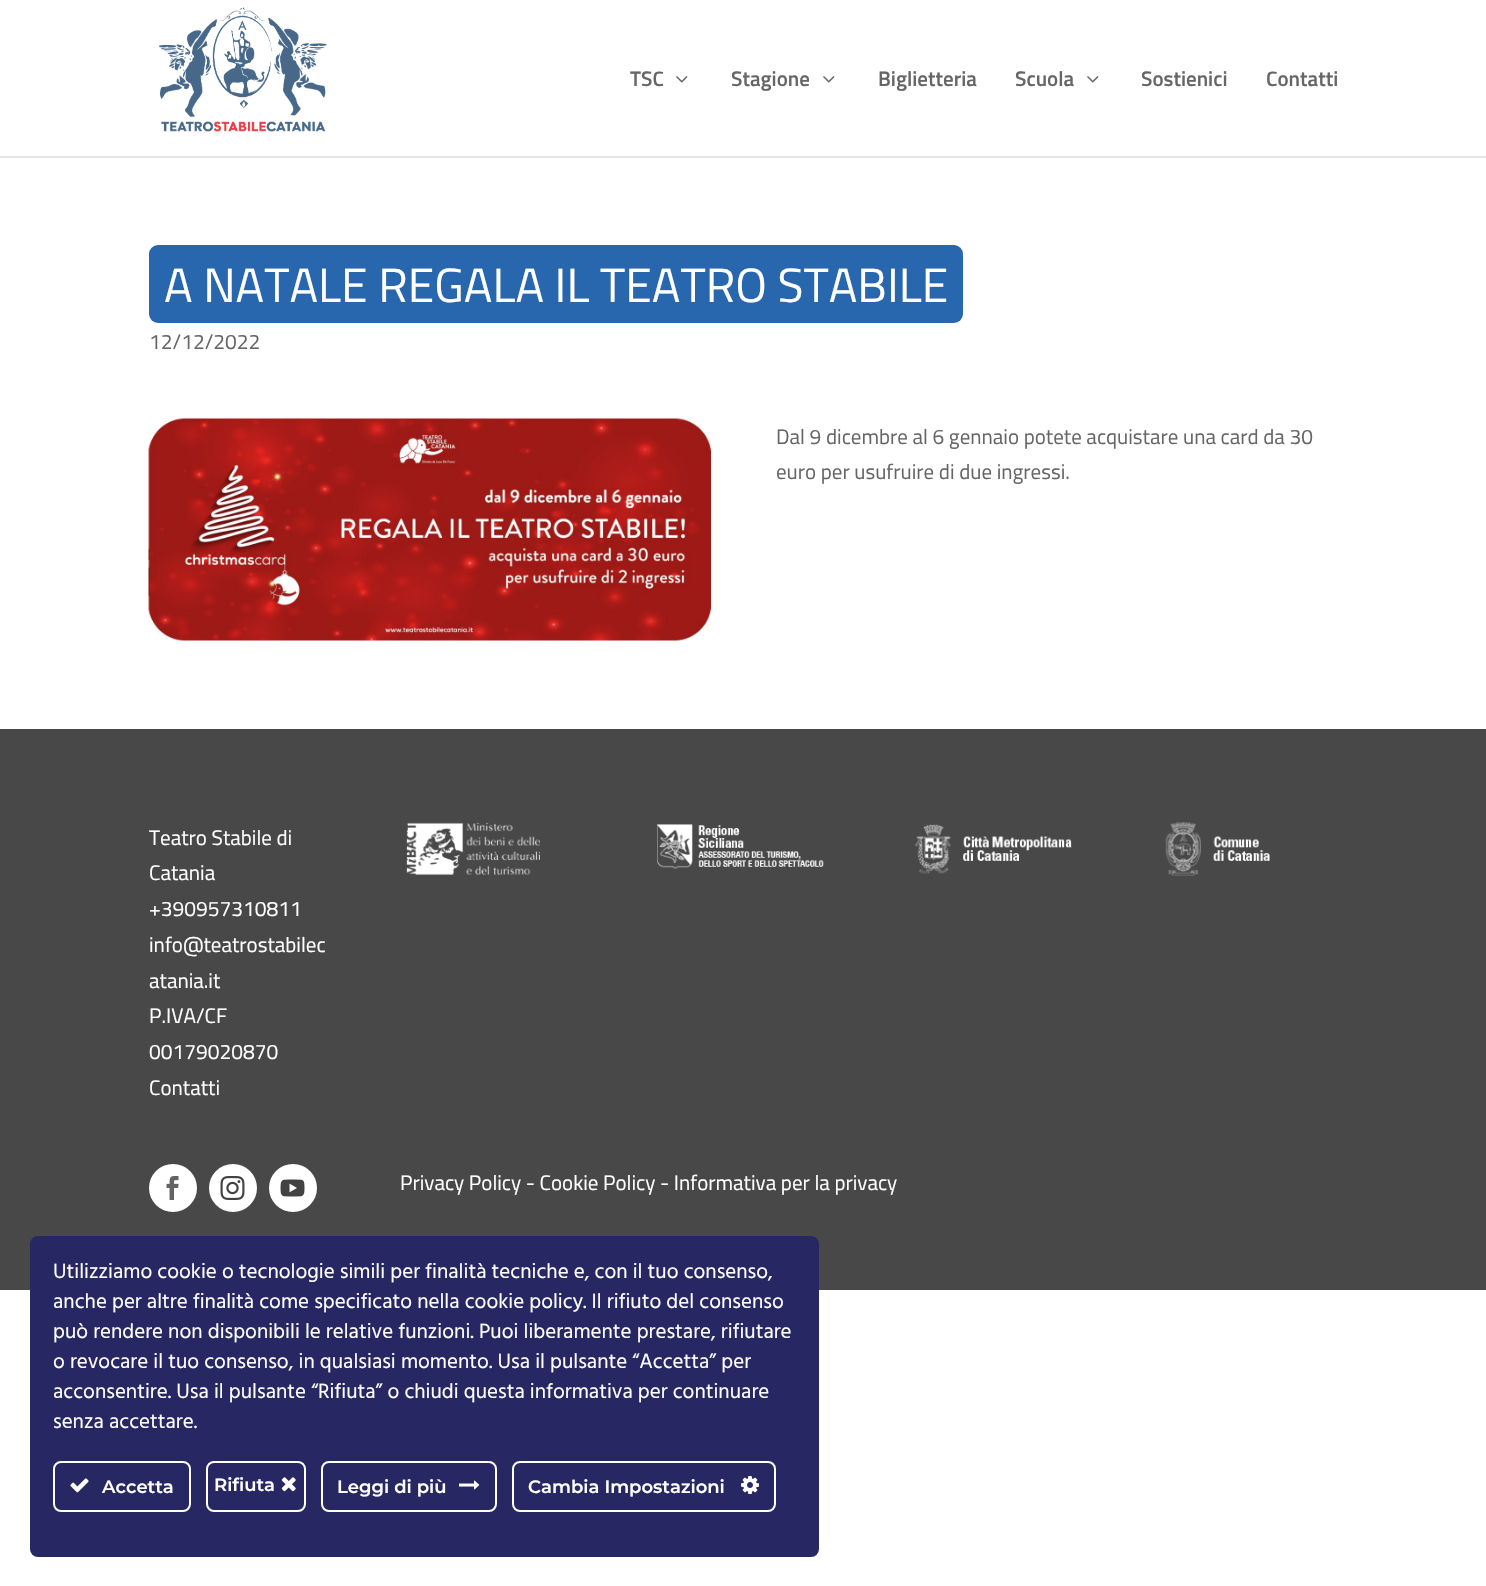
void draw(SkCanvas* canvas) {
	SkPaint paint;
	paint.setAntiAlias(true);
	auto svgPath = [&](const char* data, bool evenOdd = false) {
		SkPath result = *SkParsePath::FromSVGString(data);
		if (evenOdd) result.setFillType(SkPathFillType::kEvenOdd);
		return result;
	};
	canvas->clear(0xffffffff);
	paint.setColor(0xffe6e6e6);
	canvas->drawPath(svgPath("M0 156V158H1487V2H1486V156Z"), paint);
	canvas->drawImageRect(SkImages::DeferredFromEncodedData(SkData::MakeFromFileName("img1.png")), SkRect::MakeXYWH(159, 7, 168, 125), SkSamplingOptions());
	SkFont f1(fontMgr->matchFamilyStyle("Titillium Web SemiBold", SkFontStyle(600, SkFontStyle::kNormal_Width, SkFontStyle::kUpright_Slant)), 21);
	f1.setSubpixel(true);
	paint.setColor(0xff666666);
	canvas->drawString("TSC", 630, 86, f1, paint);
	canvas->drawImageRect(SkImages::DeferredFromEncodedData(SkData::MakeFromFileName("img2.png")), SkRect::MakeXYWH(676, 76, 12, 7), SkSamplingOptions());
	canvas->drawString("Stagione", 731, 86, f1, paint);
	canvas->drawImageRect(SkImages::DeferredFromEncodedData(SkData::MakeFromFileName("img2.png")), SkRect::MakeXYWH(823, 76, 12, 7), SkSamplingOptions());
	canvas->drawString("Biglietteria", 878, 86, f1, paint);
	canvas->drawString("Scuola", 1015, 86, f1, paint);
	canvas->drawImageRect(SkImages::DeferredFromEncodedData(SkData::MakeFromFileName("img2.png")), SkRect::MakeXYWH(1087, 76, 12, 7), SkSamplingOptions());
	canvas->drawString("Sostienici", 1141, 86, f1, paint);
	canvas->drawString("Contatti", 1266, 86, f1, paint);
	paint.setColor(0xff2866ad);
	canvas->drawRoundRect(SkRect::MakeXYWH(149, 245, 814, 78), 9, 9, paint);
	SkFont f2(fontMgr->matchFamilyStyle("Titillium Web", SkFontStyle::Normal()), 48);
	f2.setSubpixel(true);
	paint.setColor(0xffffffff);
	canvas->drawString("A NATALE REGALA IL TEATRO STABILE", 164, 302, f2, paint);
	SkFont f3(fontMgr->matchFamilyStyle("Titillium Web", SkFontStyle::Normal()), 21);
	f3.setSubpixel(true);
	paint.setColor(0xff666666);
	canvas->drawString("12/12/2022", 149, 349, f3, paint);
	canvas->drawImageRect(SkImages::DeferredFromEncodedData(SkData::MakeFromFileName("img3.png")), SkRect::MakeXYWH(148, 418, 563, 223), SkSamplingOptions());
	canvas->drawString("Dal 9 dicembre al 6 gennaio potete acquistare una card da 30", 776, 444, f3, paint);
	canvas->drawString("euro per usufruire di due ingressi.", 776, 479, f3, paint);
	paint.setColor(0xff484848);
	canvas->drawRect(SkRect::MakeXYWH(0, 729, 1486, 561), paint);
	paint.setColor(0xffffffff);
	canvas->drawString("Teatro Stabile di", 149, 845, f3, paint);
	canvas->drawString("Catania", 149, 880, f3, paint);
	canvas->drawString("+390957310811", 149, 916, f3, paint);
	canvas->drawString("info@teatrostabilec", 149, 952, f3, paint);
	canvas->drawString("atania.it", 149, 988, f3, paint);
	canvas->drawString("P.IVA/CF", 149, 1023, f3, paint);
	canvas->drawString("00179020870", 149, 1059, f3, paint);
	canvas->drawString("Contatti", 149, 1095, f3, paint);
	canvas->drawImageRect(SkImages::DeferredFromEncodedData(SkData::MakeFromFileName("img4.png")), SkRect::MakeXYWH(406, 822, 134, 53), SkSamplingOptions());
	canvas->drawImageRect(SkImages::DeferredFromEncodedData(SkData::MakeFromFileName("img5.png")), SkRect::MakeXYWH(657, 824, 167, 45), SkSamplingOptions());
	canvas->drawImageRect(SkImages::DeferredFromEncodedData(SkData::MakeFromFileName("img6.png")), SkRect::MakeXYWH(915, 824, 157, 50), SkSamplingOptions());
	canvas->drawImageRect(SkImages::DeferredFromEncodedData(SkData::MakeFromFileName("img7.png")), SkRect::MakeXYWH(1165, 822, 105, 54), SkSamplingOptions());
	canvas->drawCircle(173, 1188, 24, paint);
	canvas->drawImageRect(SkImages::DeferredFromEncodedData(SkData::MakeFromFileName("img8.png")), SkRect::MakeXYWH(166, 1176, 13, 24), SkSamplingOptions());
	canvas->drawCircle(233, 1188, 24, paint);
	canvas->drawImageRect(SkImages::DeferredFromEncodedData(SkData::MakeFromFileName("img9.png")), SkRect::MakeXYWH(220, 1176, 25, 24), SkSamplingOptions());
	canvas->drawCircle(293, 1188, 24, paint);
	canvas->drawImageRect(SkImages::DeferredFromEncodedData(SkData::MakeFromFileName("img10.png")), SkRect::MakeXYWH(280, 1179, 25, 18), SkSamplingOptions());
	canvas->drawString("Privacy Policy - Cookie Policy - Informativa per la privacy", 400, 1190, f3, paint);
	paint.setColor(0xff272763);
	canvas->drawRoundRect(SkRect::MakeXYWH(30, 1236, 789, 321), 8, 8, paint);
	SkFont f4(fontMgr->matchFamilyStyle("Hind", SkFontStyle::Normal()), 21);
	f4.setSubpixel(true);
	paint.setColor(0xffffffff);
	canvas->drawString("Utilizziamo cookie o tecnologie simili per finalità tecniche e, con il tuo consenso,", 53, 1278, f4, paint);
	canvas->drawString("anche per altre finalità come specificato nella cookie policy. Il rifiuto del consenso", 53, 1308, f4, paint);
	canvas->drawString("può rendere non disponibili le relative funzioni. Puoi liberamente prestare, rifiutare", 53, 1338, f4, paint);
	canvas->drawString("o revocare il tuo consenso, in qualsiasi momento. Usa il pulsante “Accetta” per", 53, 1368, f4, paint);
	canvas->drawString("acconsentire. Usa il pulsante “Rifiuta” o chiudi questa informativa per continuare", 53, 1398, f4, paint);
	canvas->drawString("senza accettare.", 53, 1428, f4, paint);
	paint.setStroke(true);
	paint.setStrokeWidth(2);
	canvas->drawRoundRect(SkRect::MakeXYWH(54, 1462, 136, 49), 7, 7, paint);
	canvas->drawImageRect(SkImages::DeferredFromEncodedData(SkData::MakeFromFileName("img11.png")), SkRect::MakeXYWH(70, 1478, 19, 15), SkSamplingOptions());
	SkFont f5(fontMgr->matchFamilyStyle("Montserrat", SkFontStyle(600, SkFontStyle::kNormal_Width, SkFontStyle::kUpright_Slant)), 18);
	f5.setSubpixel(true);
	paint.setStroke(false);
	canvas->drawString("Accetta", 102, 1493, f5, paint);
	paint.setStroke(true);
	canvas->drawRoundRect(SkRect::MakeXYWH(207, 1462, 98, 49), 7, 7, paint);
	paint.setStroke(false);
	canvas->drawString("Rifiuta", 214, 1491, f5, paint);
	canvas->drawImageRect(SkImages::DeferredFromEncodedData(SkData::MakeFromFileName("img12.png")), SkRect::MakeXYWH(281, 1477, 15, 15), SkSamplingOptions());
	paint.setStroke(true);
	canvas->drawRoundRect(SkRect::MakeXYWH(322, 1462, 174, 49), 7, 7, paint);
	paint.setStroke(false);
	canvas->drawString("Leggi di più", 337, 1493, f5, paint);
	canvas->drawImageRect(SkImages::DeferredFromEncodedData(SkData::MakeFromFileName("img13.png")), SkRect::MakeXYWH(459, 1480, 21, 10), SkSamplingOptions());
	paint.setStroke(true);
	canvas->drawRoundRect(SkRect::MakeXYWH(513, 1462, 262, 49), 7, 7, paint);
	paint.setStroke(false);
	canvas->drawString("Cambia Impostazioni", 528, 1493, f5, paint);
	canvas->drawImageRect(SkImages::DeferredFromEncodedData(SkData::MakeFromFileName("img14.png")), SkRect::MakeXYWH(741, 1476, 18, 18), SkSamplingOptions());
}
